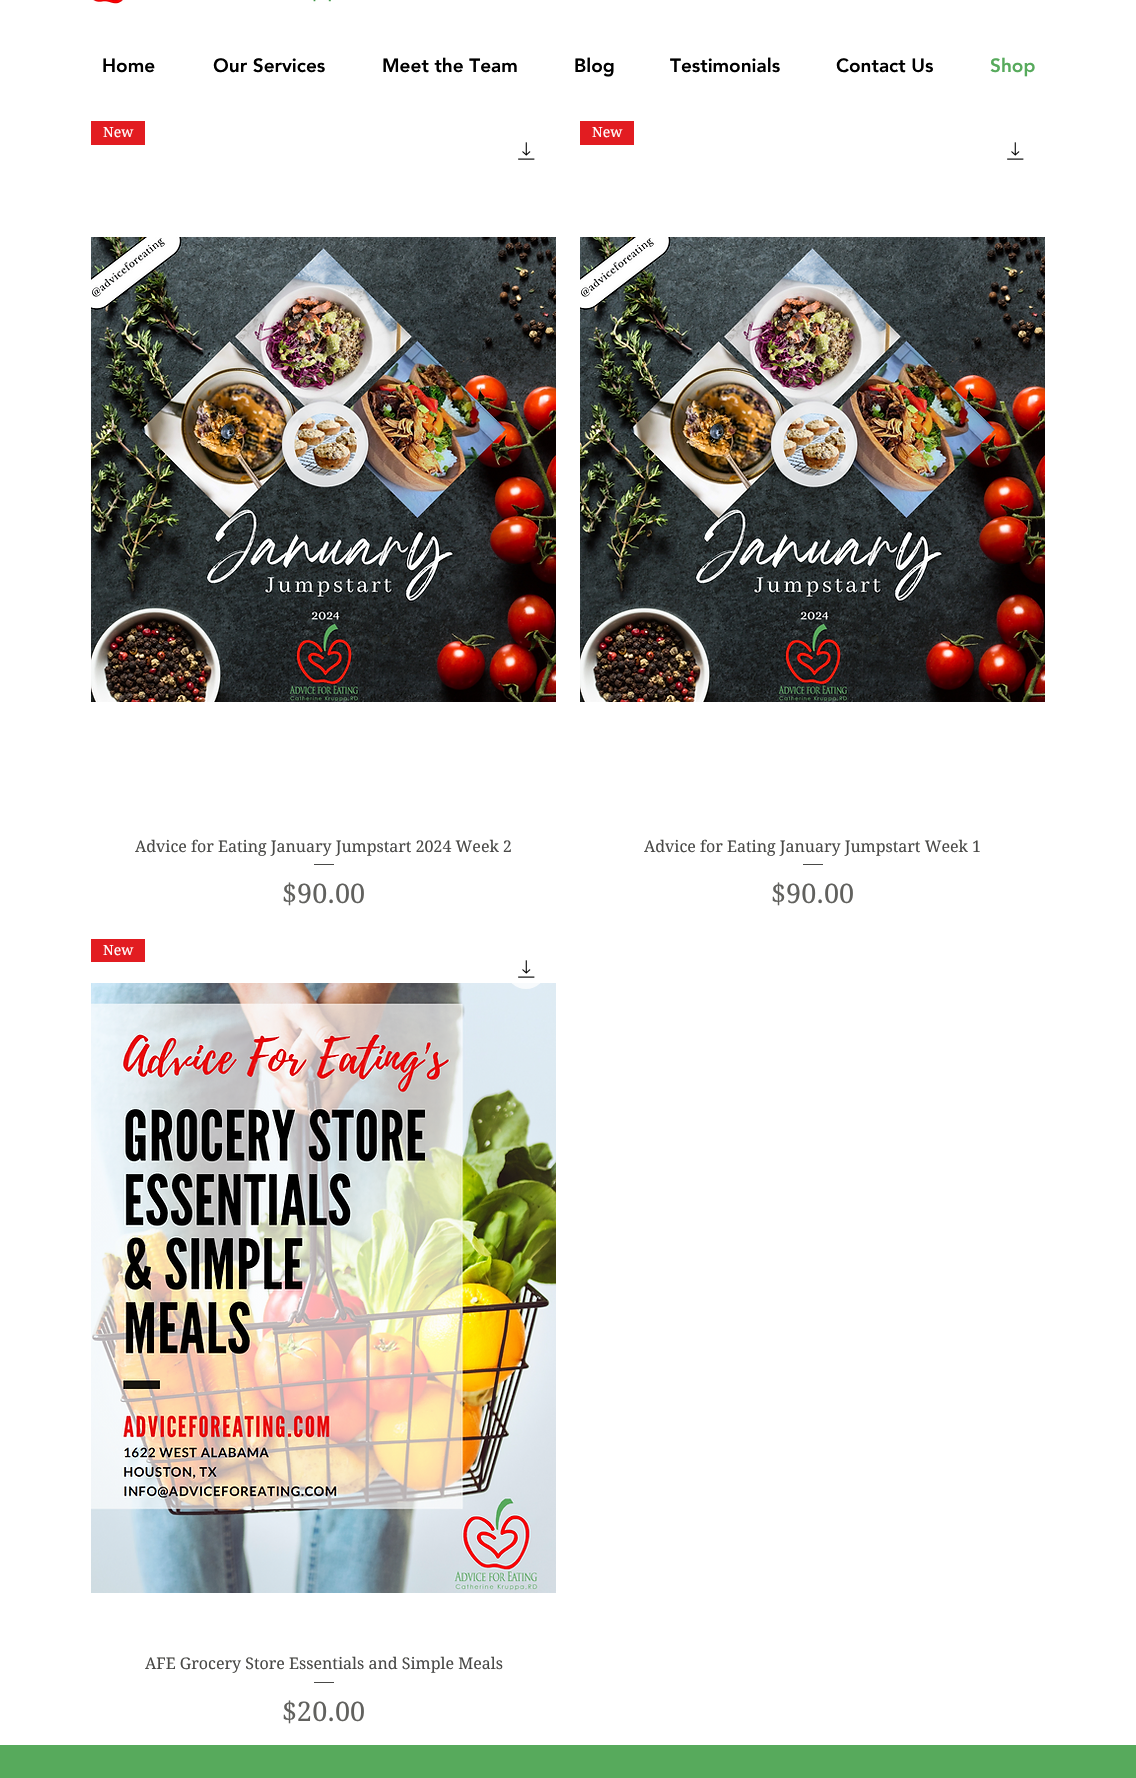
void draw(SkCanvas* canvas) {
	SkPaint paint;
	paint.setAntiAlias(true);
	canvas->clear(0xffffffff);
	canvas->drawImageRect(SkImages::DeferredFromEncodedData(SkData::MakeFromFileName("img1.png")), SkRect::MakeXYWH(93, 0, 238, 4), SkSamplingOptions());
	SkFont f1(fontMgr->matchFamilyStyle("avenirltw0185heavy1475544", SkFontStyle(900, SkFontStyle::kNormal_Width, SkFontStyle::kUpright_Slant)), 19);
	f1.setSubpixel(true);
	paint.setColor(0xff000000);
	canvas->drawString("Home", 102, 72, f1, paint);
	canvas->drawString("Our Services", 213, 72, f1, paint);
	canvas->drawString("Meet the Team", 382, 72, f1, paint);
	canvas->drawString("Blog", 574, 72, f1, paint);
	canvas->drawString("Testimonials", 670, 72, f1, paint);
	canvas->drawString("Contact Us", 836, 72, f1, paint);
	paint.setColor(0xff57aa5c);
	canvas->drawString("Shop", 990, 72, f1, paint);
	paint.setColor(0xffe21c21);
	canvas->drawRect(SkRect::MakeXYWH(91, 121, 54, 24), paint);
	SkFont f2(fontMgr->matchFamilyStyle("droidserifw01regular", SkFontStyle::Normal()), 14);
	f2.setSubpixel(true);
	paint.setColor(0xffffffff);
	canvas->drawString("New", 103, 137, f2, paint);
	canvas->drawImageRect(SkImages::DeferredFromEncodedData(SkData::MakeFromFileName("img2.png")), SkRect::MakeXYWH(518, 142, 17, 18), SkSamplingOptions());
	canvas->drawImageRect(SkImages::DeferredFromEncodedData(SkData::MakeFromFileName("img3.png")), SkRect::MakeXYWH(91, 237, 465, 465), SkSamplingOptions());
	SkFont f3(fontMgr->matchFamilyStyle("droidserifw01regular", SkFontStyle::Normal()), 16);
	f3.setSubpixel(true);
	paint.setColor(0xff494947);
	canvas->drawString("Advice for Eating January Jumpstart 2024 Week 2", 135, 852, f3, paint);
	canvas->drawRect(SkRect::MakeXYWH(314, 864, 20, 1), paint);
	SkFont f4(fontMgr->matchFamilyStyle("droidserifw01regular", SkFontStyle::Normal()), 27);
	f4.setSubpixel(true);
	paint.setColor(0xff61615e);
	canvas->drawString("$90.00", 282, 903, f4, paint);
	paint.setColor(0xffe21c21);
	canvas->drawRect(SkRect::MakeXYWH(580, 121, 54, 24), paint);
	paint.setColor(0xffffffff);
	canvas->drawString("New", 592, 137, f2, paint);
	canvas->drawImageRect(SkImages::DeferredFromEncodedData(SkData::MakeFromFileName("img2.png")), SkRect::MakeXYWH(1007, 142, 17, 18), SkSamplingOptions());
	canvas->drawImageRect(SkImages::DeferredFromEncodedData(SkData::MakeFromFileName("img3.png")), SkRect::MakeXYWH(580, 237, 465, 465), SkSamplingOptions());
	paint.setColor(0xff494947);
	canvas->drawString("Advice for Eating January Jumpstart Week 1", 644, 852, f3, paint);
	canvas->drawRect(SkRect::MakeXYWH(803, 864, 20, 1), paint);
	paint.setColor(0xff61615e);
	canvas->drawString("$90.00", 771, 903, f4, paint);
	paint.setColor(0xffe21c21);
	canvas->drawRect(SkRect::MakeXYWH(91, 939, 54, 23), paint);
	paint.setColor(0xffffffff);
	canvas->drawString("New", 103, 955, f2, paint);
	canvas->drawImageRect(SkImages::DeferredFromEncodedData(SkData::MakeFromFileName("img4.png")), SkRect::MakeXYWH(91, 983, 465, 610), SkSamplingOptions());
	paint.setColor(0xbfffffff);
	canvas->drawCircle(526, 969, 20, paint);
	canvas->drawImageRect(SkImages::DeferredFromEncodedData(SkData::MakeFromFileName("img2.png")), SkRect::MakeXYWH(518, 960, 17, 18), SkSamplingOptions());
	paint.setColor(0xff494947);
	canvas->drawString("AFE Grocery Store Essentials and Simple Meals", 145, 1669, f3, paint);
	canvas->drawRect(SkRect::MakeXYWH(314, 1682, 20, 1), paint);
	paint.setColor(0xff61615e);
	canvas->drawString("$20.00", 282, 1721, f4, paint);
	paint.setColor(0xff57aa5c);
	canvas->drawRect(SkRect::MakeXYWH(0, 1745, 1136, 33), paint);
}
